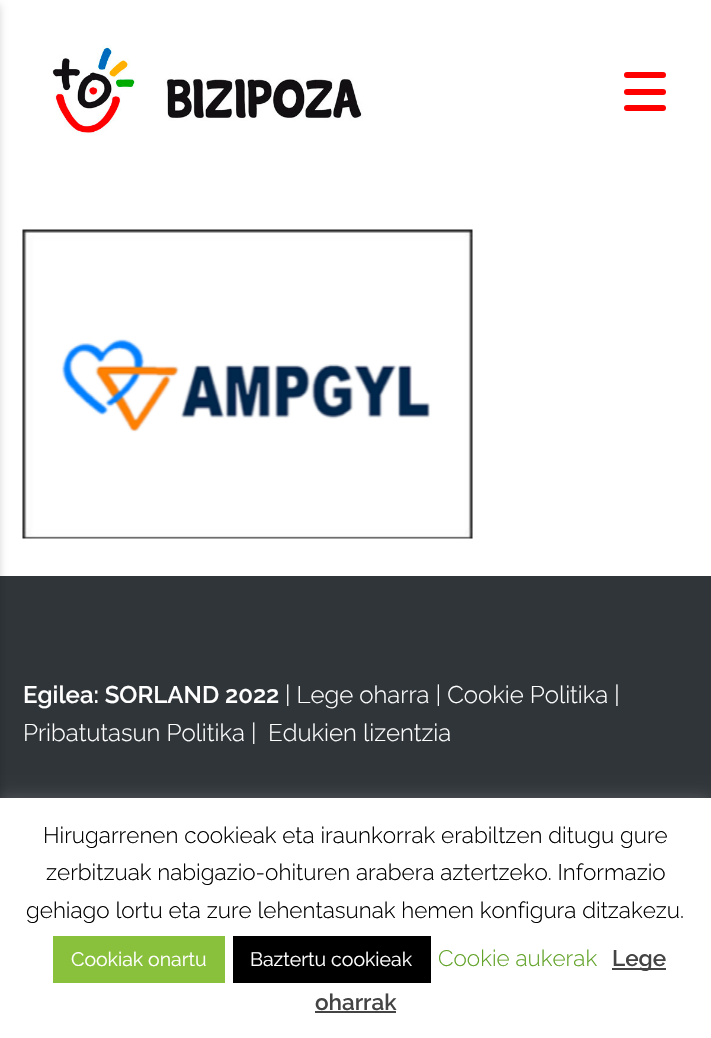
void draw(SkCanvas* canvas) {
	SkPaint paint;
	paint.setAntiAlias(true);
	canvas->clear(0xffffffff);
	paint.setColor(0xff30353a);
	canvas->drawRect(SkRect::MakeXYWH(0, 576, 711, 222), paint);
	paint.setColor(0x33000000);
	paint.setMaskFilter(SkMaskFilter::MakeBlur(kNormal_SkBlurStyle, 4));
	canvas->drawRect(SkRect::MakeXYWH(-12, 5, 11, 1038), paint);
	paint.setMaskFilter(nullptr);
	canvas->drawImageRect(SkImages::DeferredFromEncodedData(SkData::MakeFromFileName("img1.png")), SkRect::MakeXYWH(52, 45, 311, 90), SkSamplingOptions());
	paint.setColor(0xffff0000);
	canvas->drawRoundRect(SkRect::MakeXYWH(624, 72, 42, 6), 3, 3, paint);
	canvas->drawRoundRect(SkRect::MakeXYWH(624, 89, 42, 6), 3, 3, paint);
	canvas->drawRoundRect(SkRect::MakeXYWH(624, 105, 42, 6), 3, 3, paint);
	canvas->drawImageRect(SkImages::DeferredFromEncodedData(SkData::MakeFromFileName("img2.png")), SkRect::MakeXYWH(22, 229, 451, 310), SkSamplingOptions());
	SkFont f1(fontMgr->matchFamilyStyle("Raleway", SkFontStyle(600, SkFontStyle::kNormal_Width, SkFontStyle::kUpright_Slant)), 24);
	f1.setSubpixel(true);
	paint.setColor(0xffffffff);
	canvas->drawString("Egilea: SORLAND 2022", 23, 703, f1, paint);
	SkFont f2(fontMgr->matchFamilyStyle("Raleway", SkFontStyle(300, SkFontStyle::kNormal_Width, SkFontStyle::kUpright_Slant)), 24);
	f2.setSubpixel(true);
	canvas->drawString("| Lege oharra | Cookie Politika |", 285, 703, f2, paint);
	canvas->drawString("Pribatutasun Politika |", 23, 741, f2, paint);
	canvas->drawString("Edukien lizentzia", 268, 741, f2, paint);
	paint.setColor(0x4dacabab);
	paint.setMaskFilter(SkMaskFilter::MakeBlur(kNormal_SkBlurStyle, 7.5));
	canvas->drawRect(SkRect::MakeXYWH(0, 797, 711, 240), paint);
	paint.setMaskFilter(nullptr);
	paint.setColor(0xffffffff);
	canvas->drawRect(SkRect::MakeXYWH(0, 798, 711, 240), paint);
	SkFont f3(fontMgr->matchFamilyStyle("Raleway", SkFontStyle(300, SkFontStyle::kNormal_Width, SkFontStyle::kUpright_Slant)), 22.5);
	f3.setSubpixel(true);
	paint.setColor(0xff000000);
	canvas->drawString("Hirugarrenen cookieak eta iraunkorrak erabiltzen ditugu gure", 43, 843, f3, paint);
	canvas->drawString("zerbitzuak nabigazio-ohituren arabera aztertzeko. Informazio", 46, 880, f3, paint);
	canvas->drawString("gehiago lortu eta zure lehentasunak hemen konfigura ditzakezu.", 26, 918, f3, paint);
	paint.setColor(0xff8ac13c);
	canvas->drawRect(SkRect::MakeXYWH(53, 936, 172, 47), paint);
	SkFont f4(fontMgr->matchFamilyStyle("Raleway", SkFontStyle::Normal()), 19.5);
	f4.setSubpixel(true);
	paint.setColor(0xffffffff);
	canvas->drawString("Cookiak onartu", 71, 966, f4, paint);
	paint.setColor(0xff000000);
	canvas->drawRect(SkRect::MakeXYWH(233, 936, 198, 47), paint);
	paint.setColor(0xffffffff);
	canvas->drawString("Baztertu cookieak", 250, 966, f4, paint);
	paint.setColor(0xff62a329);
	canvas->drawString("Cookie aukerak", 438, 966, f3, paint);
	paint.setColor(0xff444444);
	canvas->drawRect(SkRect::MakeXYWH(612, 968, 54, 2), paint);
	SkFont f5(fontMgr->matchFamilyStyle("Raleway", SkFontStyle(600, SkFontStyle::kNormal_Width, SkFontStyle::kUpright_Slant)), 22.5);
	f5.setSubpixel(true);
	canvas->drawString("Lege", 612, 966, f5, paint);
	canvas->drawString("oharrak", 315, 1010, f5, paint);
	canvas->drawRect(SkRect::MakeXYWH(315, 1011, 81, 2), paint);
}
